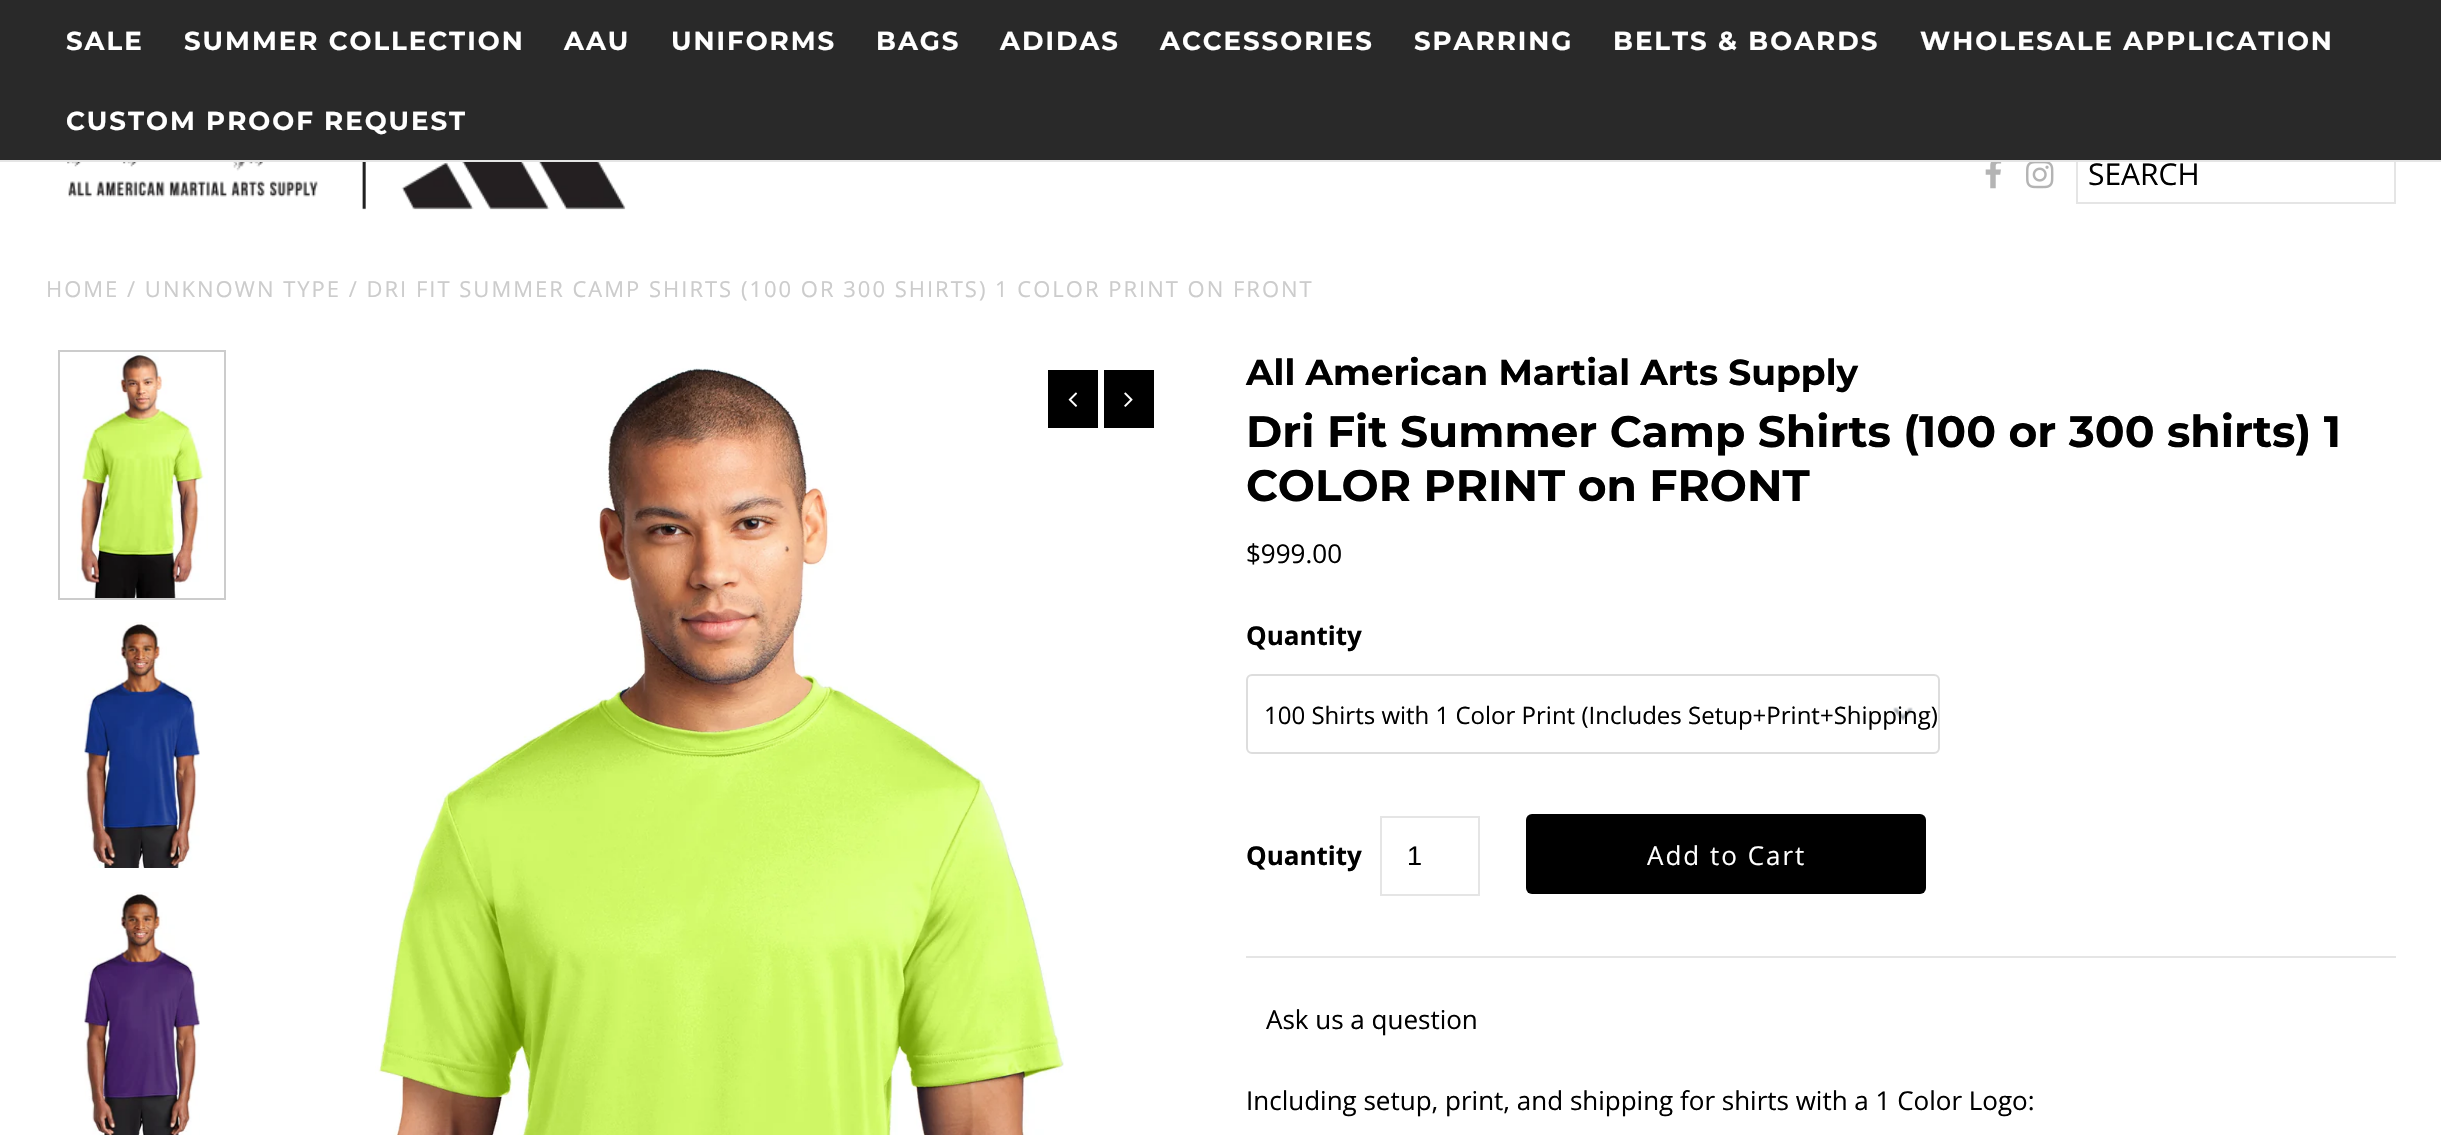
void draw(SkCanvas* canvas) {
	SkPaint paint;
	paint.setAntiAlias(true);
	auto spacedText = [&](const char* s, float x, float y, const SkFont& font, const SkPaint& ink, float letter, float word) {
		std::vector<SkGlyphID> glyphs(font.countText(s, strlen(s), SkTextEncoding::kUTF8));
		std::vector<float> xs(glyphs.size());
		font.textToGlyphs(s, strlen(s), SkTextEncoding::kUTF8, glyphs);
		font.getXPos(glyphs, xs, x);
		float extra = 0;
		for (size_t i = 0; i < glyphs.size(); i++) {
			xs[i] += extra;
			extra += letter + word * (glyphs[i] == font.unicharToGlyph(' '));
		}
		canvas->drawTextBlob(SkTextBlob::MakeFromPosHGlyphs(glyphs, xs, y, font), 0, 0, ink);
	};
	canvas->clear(0xffffffff);
	paint.setStroke(true);
	paint.setStrokeWidth(2);
	paint.setColor(0xffe5e5e5);
	canvas->drawRect(SkRect::MakeXYWH(2077, 145, 318, 58), paint);
	paint.setStroke(false);
	paint.setColor(0xff292929);
	canvas->drawRect(SkRect::MakeXYWH(0, 0, 2441, 160), paint);
	paint.setColor(0xffe5e5e5);
	canvas->drawRect(SkRect::MakeXYWH(0, 160, 2441, 2), paint);
	SkFont f1(fontMgr->matchFamilyStyle("Montserrat", SkFontStyle::Bold()), 26);
	f1.setSubpixel(true);
	paint.setColor(0xffffffff);
	spacedText("SALE", 66, 50, f1, paint, 2, 0);
	spacedText("SUMMER COLLECTION", 184, 50, f1, paint, 2, 0);
	spacedText("AAU", 564, 50, f1, paint, 2, 0);
	spacedText("UNIFORMS", 671, 50, f1, paint, 2, 0);
	spacedText("BAGS", 876, 50, f1, paint, 2, 0);
	spacedText("ADIDAS", 1000, 50, f1, paint, 2, 0);
	spacedText("ACCESSORIES", 1160, 50, f1, paint, 2, 0);
	spacedText("SPARRING", 1414, 50, f1, paint, 2, 0);
	spacedText("BELTS & BOARDS", 1613, 50, f1, paint, 2, 0);
	spacedText("WHOLESALE APPLICATION", 1920, 50, f1, paint, 2, 0);
	spacedText("CUSTOM PROOF REQUEST", 66, 130, f1, paint, 2, 0);
	canvas->drawImageRect(SkImages::DeferredFromEncodedData(SkData::MakeFromFileName("img1.png")), SkRect::MakeXYWH(67, 162, 559, 48), SkSamplingOptions());
	canvas->drawImageRect(SkImages::DeferredFromEncodedData(SkData::MakeFromFileName("img2.png")), SkRect::MakeXYWH(1985, 162, 17, 27), SkSamplingOptions());
	canvas->drawImageRect(SkImages::DeferredFromEncodedData(SkData::MakeFromFileName("img3.png")), SkRect::MakeXYWH(2026, 162, 28, 27), SkSamplingOptions());
	SkFont f2(fontMgr->matchFamilyStyle("Open Sans", SkFontStyle::Normal()), 30);
	f2.setSubpixel(true);
	paint.setColor(0xff000000);
	canvas->drawString("SEARCH", 2088, 185, f2, paint);
	SkFont f3(fontMgr->matchFamilyStyle("Open Sans", SkFontStyle::Normal()), 22);
	f3.setSubpixel(true);
	paint.setColor(0xffcccccc);
	spacedText("HOME / UNKNOWN TYPE / DRI FIT SUMMER CAMP SHIRTS (100 OR 300 SHIRTS) 1 COLOR PRINT ON FRONT", 46, 297, f3, paint, 2, 0);
	paint.setStroke(true);
	canvas->drawRect(SkRect::MakeXYWH(59, 351, 166, 248), paint);
	canvas->drawImageRect(SkImages::DeferredFromEncodedData(SkData::MakeFromFileName("img4.png")), SkRect::MakeXYWH(77, 352, 131, 246), SkSamplingOptions());
	canvas->drawImageRect(SkImages::DeferredFromEncodedData(SkData::MakeFromFileName("img5.png")), SkRect::MakeXYWH(84, 622, 116, 246), SkSamplingOptions());
	canvas->drawImageRect(SkImages::DeferredFromEncodedData(SkData::MakeFromFileName("img6.png")), SkRect::MakeXYWH(84, 892, 116, 243), SkSamplingOptions());
	canvas->drawImageRect(SkImages::DeferredFromEncodedData(SkData::MakeFromFileName("img7.png")), SkRect::MakeXYWH(375, 368, 689, 767), SkSamplingOptions());
	paint.setStroke(false);
	paint.setColor(0xff000000);
	canvas->drawRect(SkRect::MakeXYWH(1048, 370, 50, 58), paint);
	canvas->drawImageRect(SkImages::DeferredFromEncodedData(SkData::MakeFromFileName("img8.png")), SkRect::MakeXYWH(1068, 392, 10, 15), SkSamplingOptions());
	canvas->drawRect(SkRect::MakeXYWH(1104, 370, 50, 58), paint);
	canvas->drawImageRect(SkImages::DeferredFromEncodedData(SkData::MakeFromFileName("img9.png")), SkRect::MakeXYWH(1124, 392, 9, 15), SkSamplingOptions());
	SkFont f4(fontMgr->matchFamilyStyle("Montserrat", SkFontStyle::Bold()), 36);
	f4.setSubpixel(true);
	canvas->drawString("All American Martial Arts Supply", 1246, 385, f4, paint);
	SkFont f5(fontMgr->matchFamilyStyle("Montserrat", SkFontStyle::Bold()), 44);
	f5.setSubpixel(true);
	canvas->drawString("Dri Fit Summer Camp Shirts (100 or 300 shirts) 1", 1246, 447, f5, paint);
	canvas->drawString("COLOR PRINT on FRONT", 1246, 501, f5, paint);
	SkFont f6(fontMgr->matchFamilyStyle("Open Sans", SkFontStyle::Normal()), 26);
	f6.setSubpixel(true);
	canvas->drawString("$999.00", 1246, 563, f6, paint);
	paint.setColor(0xffe5e5e5);
	canvas->drawRect(SkRect::MakeXYWH(1246, 956, 1150, 2), paint);
	SkFont f7(fontMgr->matchFamilyStyle("Open Sans", SkFontStyle::Bold()), 26);
	f7.setSubpixel(true);
	paint.setColor(0xff000000);
	canvas->drawString("Quantity", 1246, 645, f7, paint);
	canvas->drawImageRect(SkImages::DeferredFromEncodedData(SkData::MakeFromFileName("img10.png")), SkRect::MakeXYWH(1893, 707, 20, 14), SkSamplingOptions());
	paint.setStroke(true);
	paint.setColor(0xffdddddd);
	canvas->drawRoundRect(SkRect::MakeXYWH(1247, 675, 692, 78), 5, 5, paint);
	SkFont f8(fontMgr->matchFamilyStyle("Open Sans", SkFontStyle::Normal()), 24);
	f8.setSubpixel(true);
	paint.setStroke(false);
	paint.setColor(0xff000000);
	canvas->drawString("100 Shirts with 1 Color Print (Includes Setup+Print+Shipping)", 1264, 724, f8, paint);
	canvas->drawString("Quantity", 1246, 865, f7, paint);
	paint.setStroke(true);
	paint.setColor(0xffe5e5e5);
	canvas->drawRect(SkRect::MakeXYWH(1381, 817, 98, 78), paint);
	SkFont f9(fontMgr->matchFamilyStyle("Liberation Sans", SkFontStyle::Normal()), 27);
	f9.setSubpixel(true);
	paint.setStroke(false);
	paint.setColor(0xff000000);
	canvas->drawString("1", 1407, 865, f9, paint);
	canvas->drawRoundRect(SkRect::MakeXYWH(1526, 814, 400, 80), 6, 6, paint);
	paint.setColor(0xffffffff);
	spacedText("Add to Cart", 1647, 865, f6, paint, 2, 0);
	paint.setColor(0xff000000);
	canvas->drawString("Ask us a question", 1266, 1029, f6, paint);
	canvas->drawString("Including setup, print, and shipping for shirts with a 1 Color Logo:", 1246, 1110, f6, paint);
}
